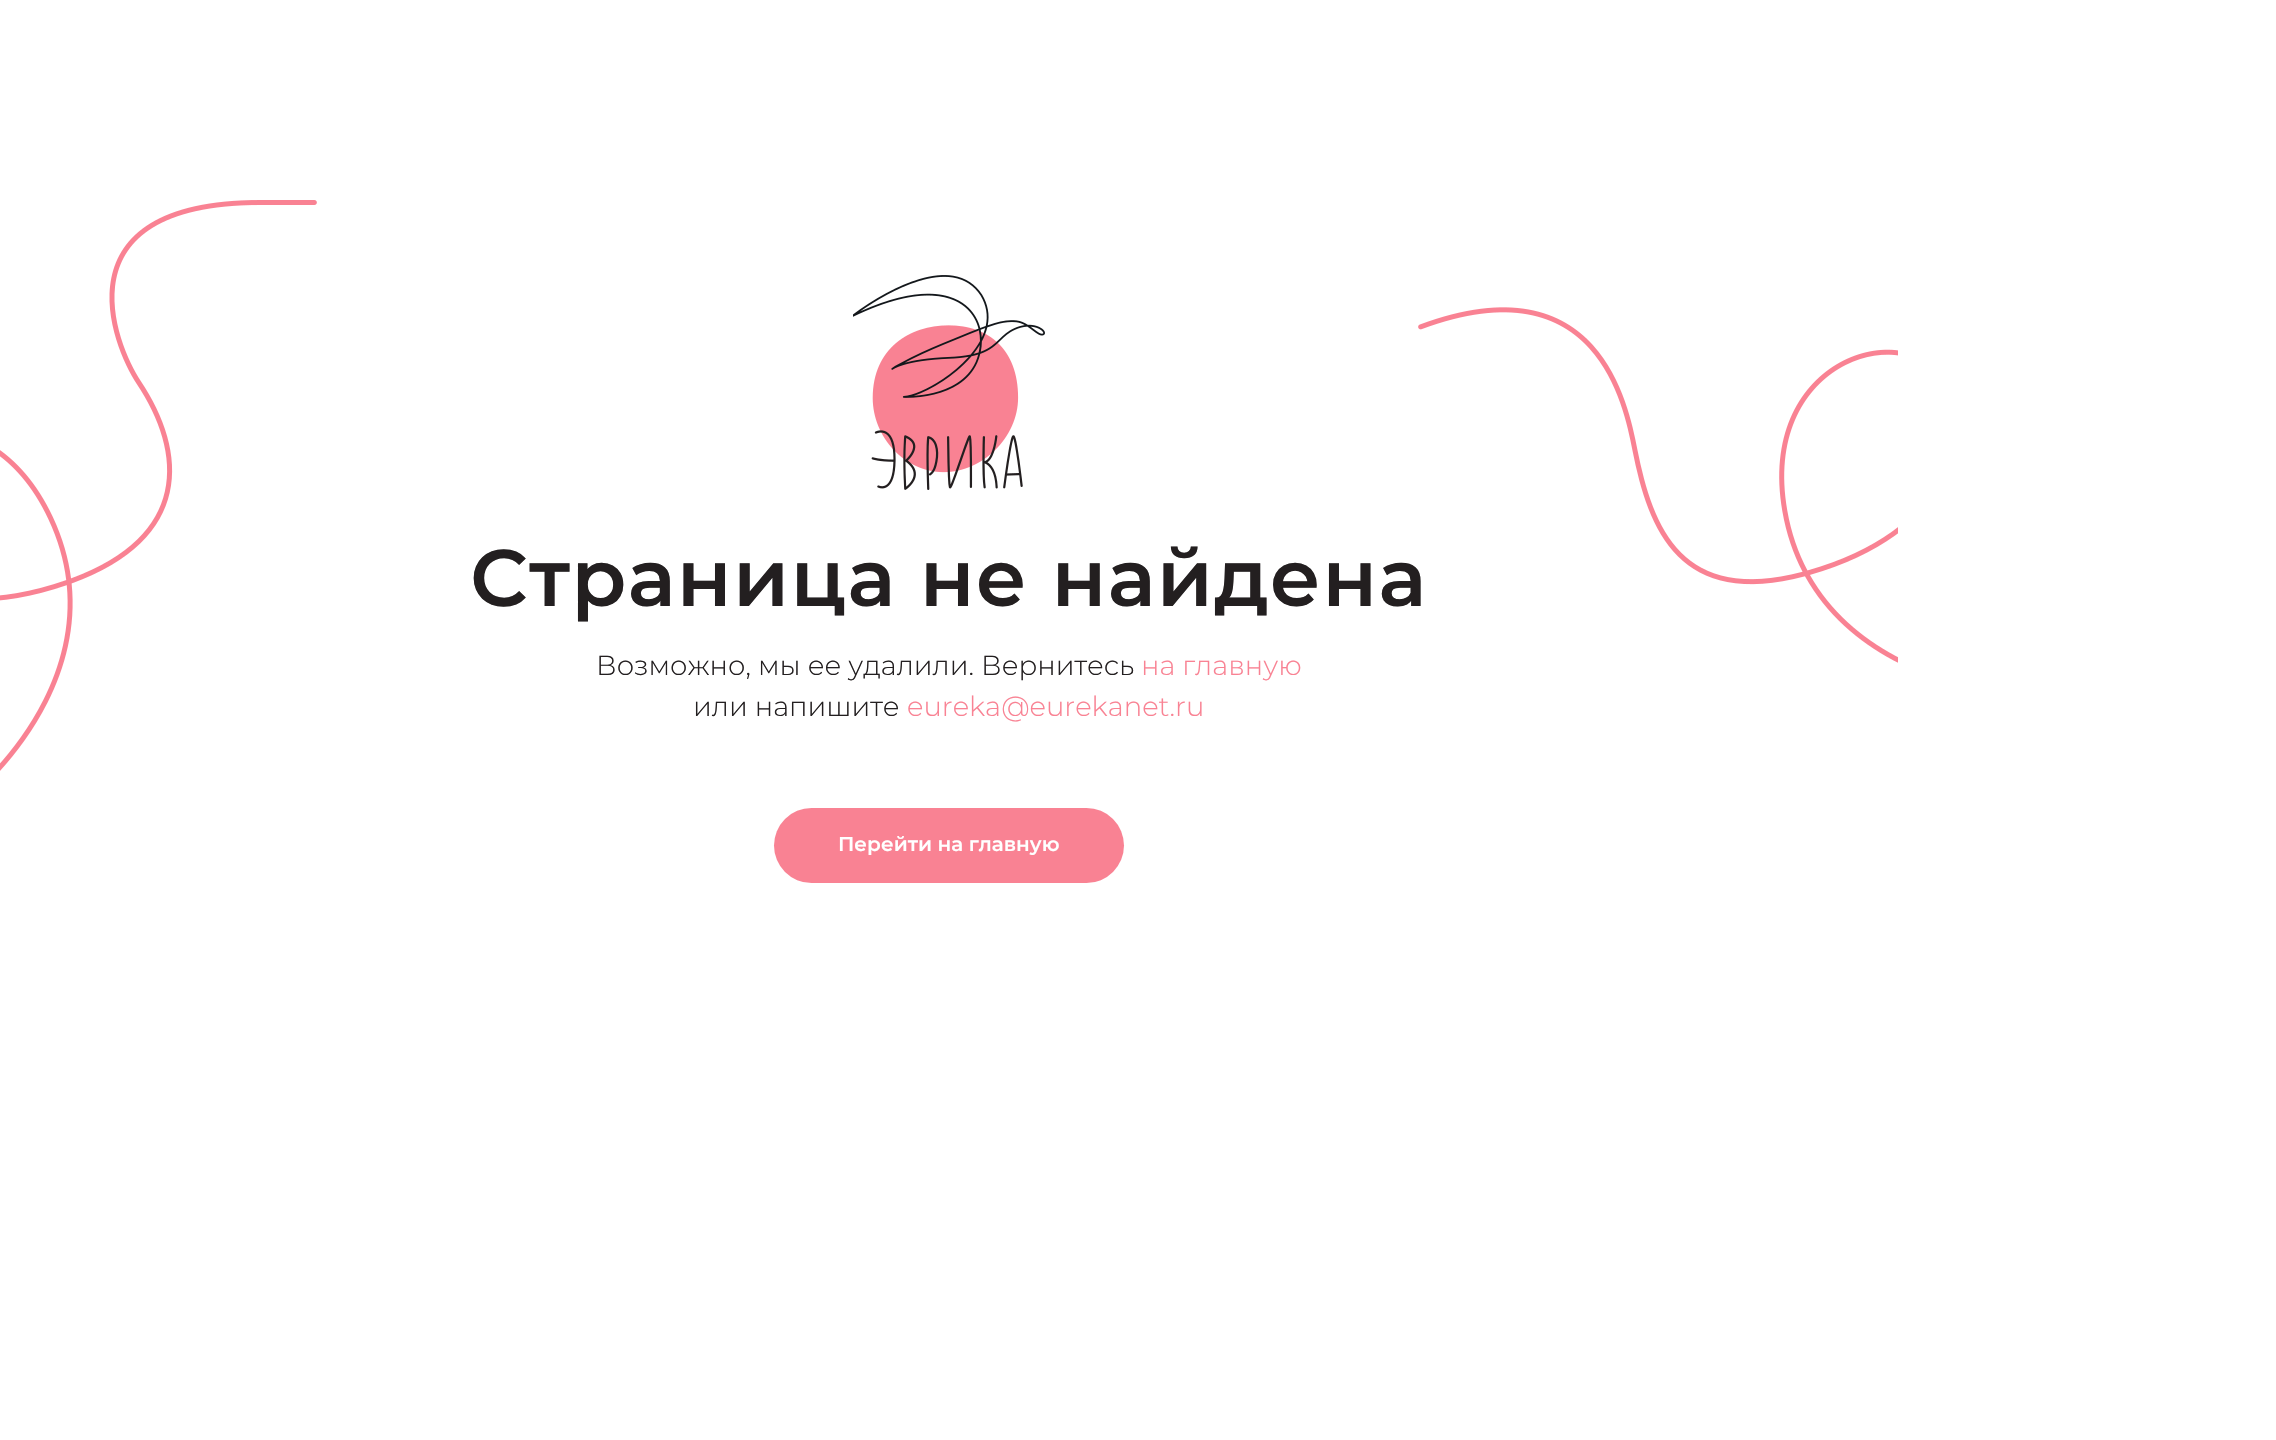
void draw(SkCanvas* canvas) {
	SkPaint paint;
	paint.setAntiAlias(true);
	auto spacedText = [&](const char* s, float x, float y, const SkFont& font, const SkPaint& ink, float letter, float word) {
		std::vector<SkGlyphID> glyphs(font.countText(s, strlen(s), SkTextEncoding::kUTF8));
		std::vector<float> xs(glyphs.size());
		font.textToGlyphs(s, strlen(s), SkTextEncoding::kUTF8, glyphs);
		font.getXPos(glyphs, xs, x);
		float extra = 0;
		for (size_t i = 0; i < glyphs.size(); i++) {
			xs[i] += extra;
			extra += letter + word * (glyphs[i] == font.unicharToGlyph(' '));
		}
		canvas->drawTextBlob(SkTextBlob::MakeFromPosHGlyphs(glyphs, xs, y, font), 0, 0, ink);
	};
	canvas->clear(0xffffffff);
	canvas->drawImageRect(SkImages::DeferredFromEncodedData(SkData::MakeFromFileName("img1.png")), SkRect::MakeXYWH(0, 200, 317, 571), SkSamplingOptions());
	canvas->drawImageRect(SkImages::DeferredFromEncodedData(SkData::MakeFromFileName("img2.png")), SkRect::MakeXYWH(853, 275, 192, 215), SkSamplingOptions());
	SkFont f1(fontMgr->matchFamilyStyle("Montserrat", SkFontStyle(600, SkFontStyle::kNormal_Width, SkFontStyle::kUpright_Slant)), 80);
	f1.setSubpixel(true);
	paint.setColor(0xff231f20);
	spacedText("Страница не найдена", 470, 606, f1, paint, 1.25, 0);
	canvas->drawImageRect(SkImages::DeferredFromEncodedData(SkData::MakeFromFileName("img3.png")), SkRect::MakeXYWH(1418, 307, 480, 356), SkSamplingOptions());
	SkFont f2(fontMgr->matchFamilyStyle("Montserrat", SkFontStyle(300, SkFontStyle::kNormal_Width, SkFontStyle::kUpright_Slant)), 27.5);
	f2.setSubpixel(true);
	canvas->drawString("Возможно, мы ее удалили. Вернитесь", 596, 675, f2, paint);
	paint.setColor(0xfff98293);
	canvas->drawString("на главную", 1141, 675, f2, paint);
	paint.setColor(0xff231f20);
	canvas->drawString("или напишите", 693, 716, f2, paint);
	paint.setColor(0xfff98293);
	canvas->drawString("eureka@eurekanet.ru", 907, 716, f2, paint);
	canvas->drawRoundRect(SkRect::MakeXYWH(774, 808, 350, 75), 37.5, 37.5, paint);
	SkFont f3(fontMgr->matchFamilyStyle("Montserrat", SkFontStyle(600, SkFontStyle::kNormal_Width, SkFontStyle::kUpright_Slant)), 20);
	f3.setSubpixel(true);
	paint.setColor(0xffffffff);
	canvas->drawString("Перейти на главную", 838, 851, f3, paint);
}
